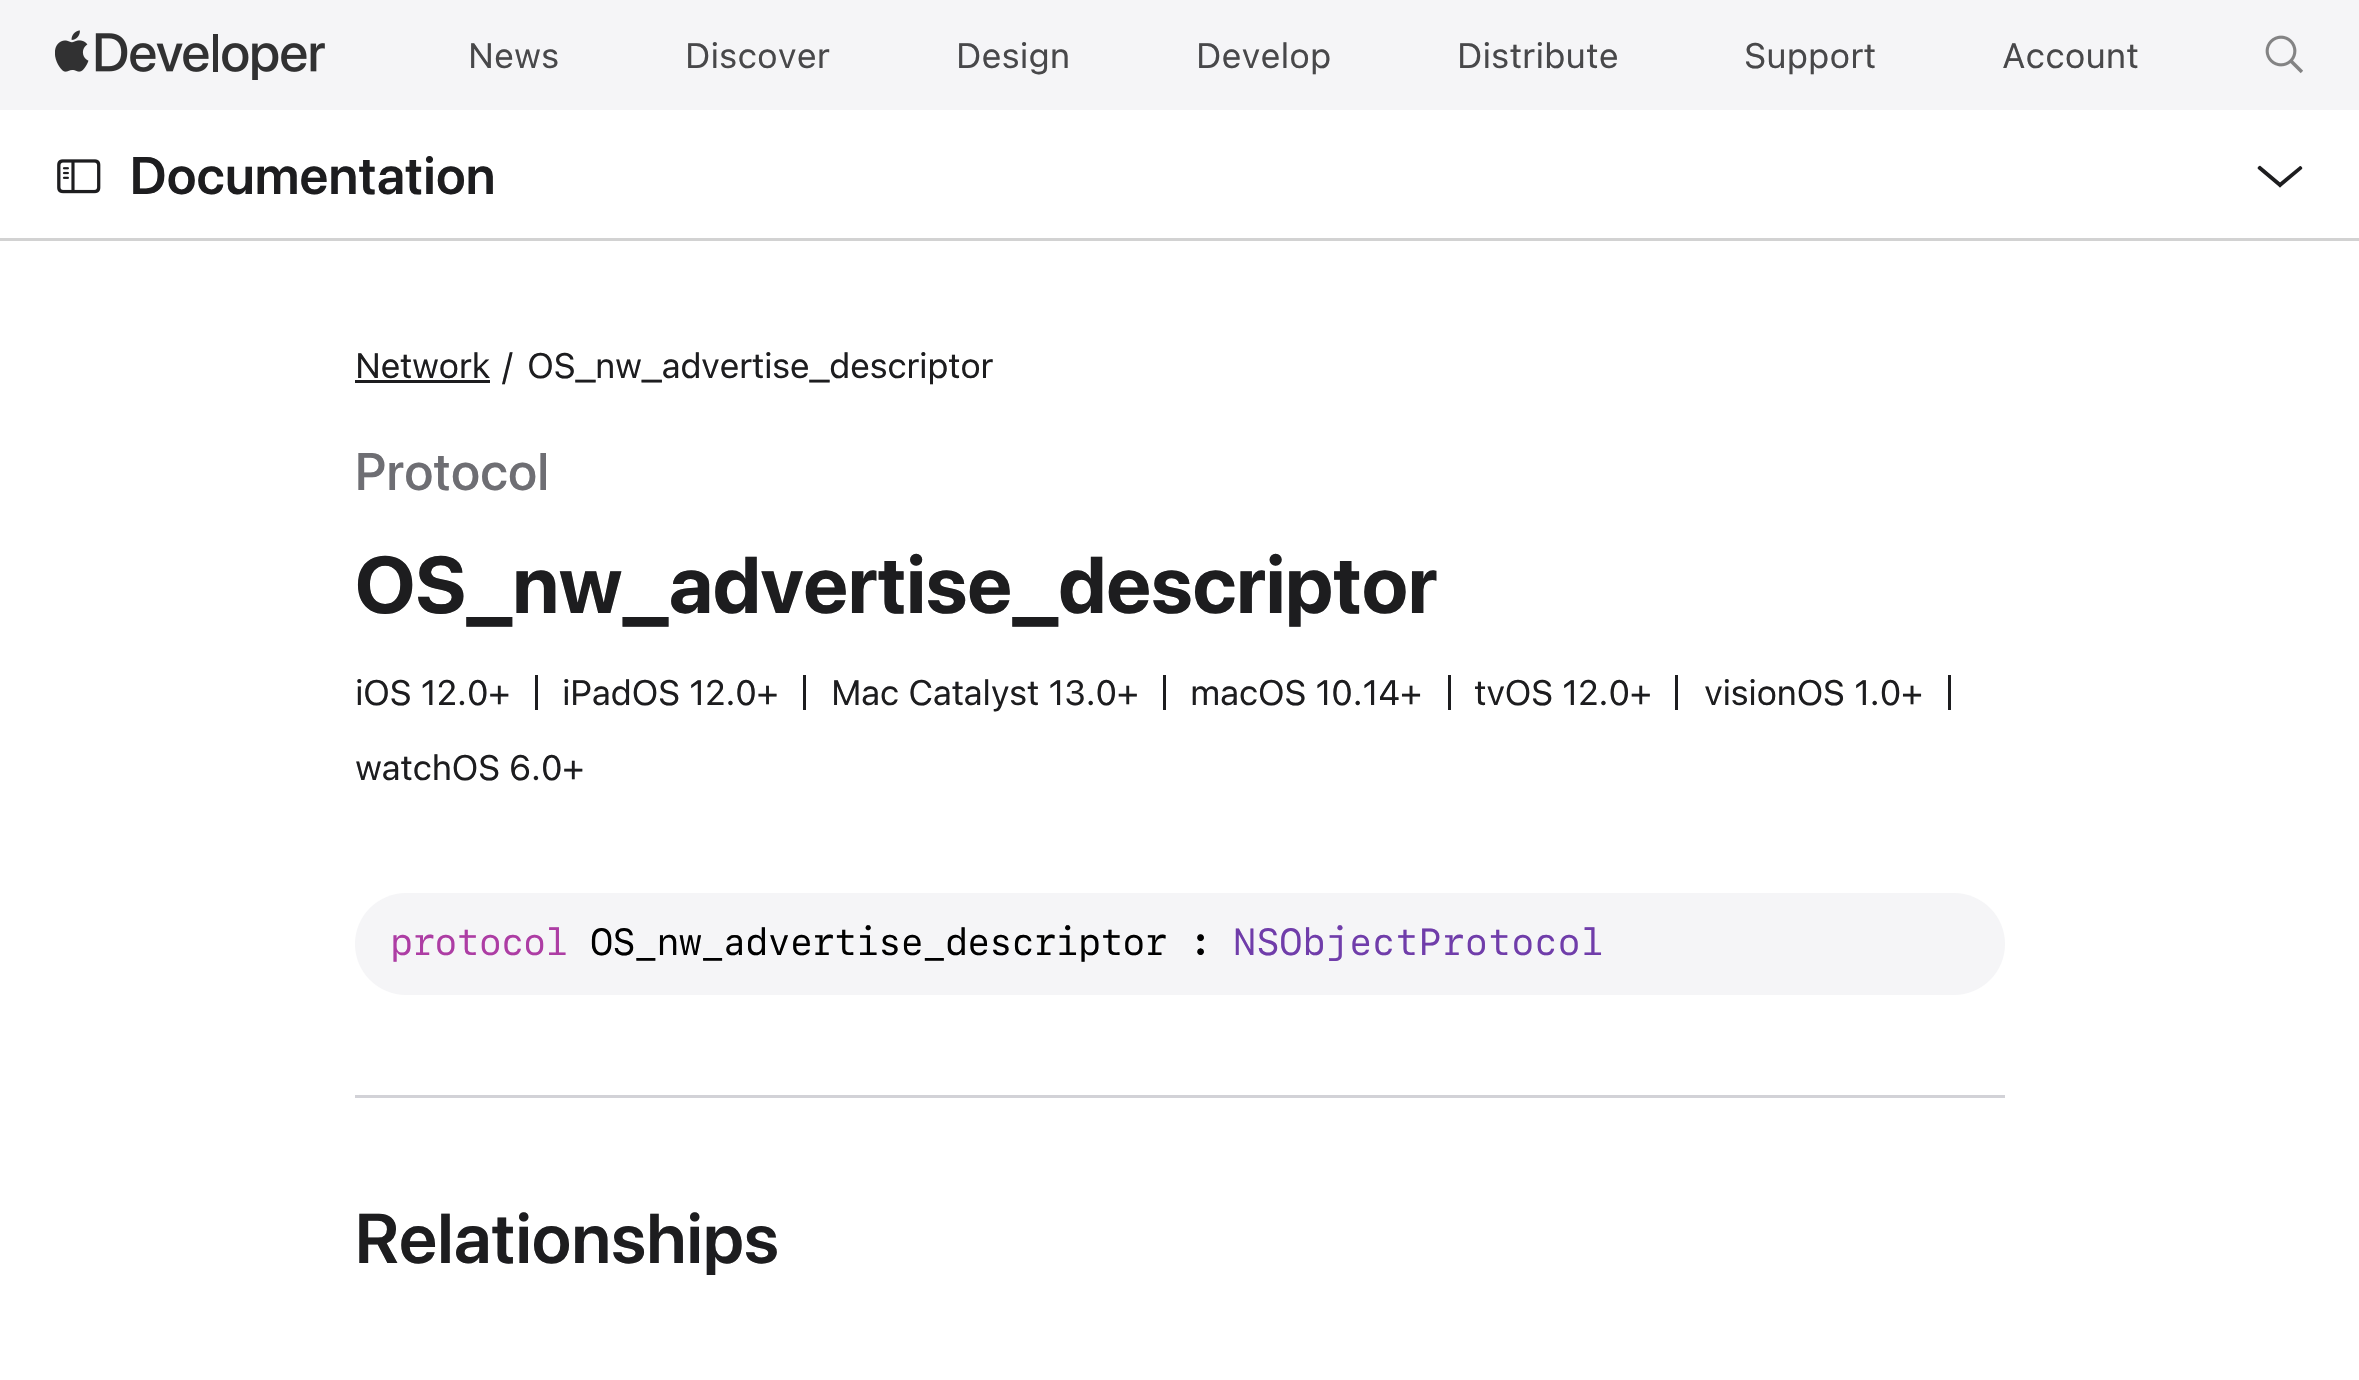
void draw(SkCanvas* canvas) {
	SkPaint paint;
	paint.setAntiAlias(true);
	auto spacedText = [&](const char* s, float x, float y, const SkFont& font, const SkPaint& ink, float letter, float word) {
		std::vector<SkGlyphID> glyphs(font.countText(s, strlen(s), SkTextEncoding::kUTF8));
		std::vector<float> xs(glyphs.size());
		font.textToGlyphs(s, strlen(s), SkTextEncoding::kUTF8, glyphs);
		font.getXPos(glyphs, xs, x);
		float extra = 0;
		for (size_t i = 0; i < glyphs.size(); i++) {
			xs[i] += extra;
			extra += letter + word * (glyphs[i] == font.unicharToGlyph(' '));
		}
		canvas->drawTextBlob(SkTextBlob::MakeFromPosHGlyphs(glyphs, xs, y, font), 0, 0, ink);
	};
	auto svgPath = [&](const char* data, bool evenOdd = false) {
		SkPath result = *SkParsePath::FromSVGString(data);
		if (evenOdd) result.setFillType(SkPathFillType::kEvenOdd);
		return result;
	};
	canvas->clear(0xffffffff);
	paint.setColor(0xfff5f5f7);
	canvas->drawRect(SkRect::MakeXYWH(0, 0, 2359, 110), paint);
	canvas->drawImageRect(SkImages::DeferredFromEncodedData(SkData::MakeFromFileName("img1.png")), SkRect::MakeXYWH(55, 30, 270, 50), SkSamplingOptions());
	SkFont f1(fontMgr->matchFamilyStyle("SF Pro Text", SkFontStyle::Normal()), 35);
	f1.setSubpixel(true);
	paint.setColor(0xff48484a);
	canvas->drawString("News", 468, 68, f1, paint);
	canvas->drawString("Discover", 685, 68, f1, paint);
	canvas->drawString("Design", 956, 68, f1, paint);
	canvas->drawString("Develop", 1196, 68, f1, paint);
	canvas->drawString("Distribute", 1457, 68, f1, paint);
	canvas->drawString("Support", 1744, 68, f1, paint);
	canvas->drawString("Account", 2002, 68, f1, paint);
	canvas->drawImageRect(SkImages::DeferredFromEncodedData(SkData::MakeFromFileName("img2.png")), SkRect::MakeXYWH(2265, 35, 38, 39), SkSamplingOptions());
	canvas->drawImageRect(SkImages::DeferredFromEncodedData(SkData::MakeFromFileName("img3.png")), SkRect::MakeXYWH(57, 159, 44, 35), SkSamplingOptions());
	SkFont f2(fontMgr->matchFamilyStyle("SF Pro Display", SkFontStyle(600, SkFontStyle::kNormal_Width, SkFontStyle::kUpright_Slant)), 52.5);
	f2.setSubpixel(true);
	paint.setColor(0xff1d1d1f);
	spacedText("Documentation", 130, 194, f2, paint, 0.6, 0);
	canvas->drawPath(svgPath("M2260.5 166L2282.5 184.5L2280 187.5L2258 169L2257.5 168C2258 167 2259.5 165 2260.5 166Z"), paint);
	canvas->drawPath(svgPath("M2277.5 184.5L2300 166H2300.5C2301.5 166.5 2303 168 2302 169L2280 187.5Z"), paint);
	paint.setColor(0xffd2d2d2);
	canvas->drawRect(SkRect::MakeXYWH(0, 238, 2359, 3), paint);
	paint.setColor(0xff1d1d1f);
	spacedText("Network", 355, 378, f1, paint, -0.55, 0);
	canvas->drawRect(SkRect::MakeXYWH(355, 380, 135, 3), paint);
	spacedText("/", 502, 378, f1, paint, -0.55, 0);
	spacedText("OS_nw_advertise_descriptor", 527, 378, f1, paint, -0.55, 0);
	SkFont f3(fontMgr->matchFamilyStyle("SF Pro Display", SkFontStyle(500, SkFontStyle::kNormal_Width, SkFontStyle::kUpright_Slant)), 52.5);
	f3.setSubpixel(true);
	paint.setColor(0xff6e6e73);
	spacedText("Protocol", 355, 490, f3, paint, 0.6, 0);
	SkFont f4(fontMgr->matchFamilyStyle("SF Pro Display", SkFontStyle::Bold()), 80);
	f4.setSubpixel(true);
	paint.setColor(0xff1d1d1f);
	spacedText("OS_nw_advertise_descriptor", 355, 613, f4, paint, 0.3, 0);
	spacedText("iOS 12.0+", 355, 705, f1, paint, -0.55, 0);
	canvas->drawRect(SkRect::MakeXYWH(535, 675, 3, 35), paint);
	spacedText("iPadOS 12.0+", 562, 705, f1, paint, -0.55, 0);
	canvas->drawRect(SkRect::MakeXYWH(803, 675, 3, 35), paint);
	spacedText("Mac Catalyst 13.0+", 831, 705, f1, paint, -0.55, 0);
	canvas->drawRect(SkRect::MakeXYWH(1163, 675, 3, 35), paint);
	spacedText("macOS 10.14+", 1190, 705, f1, paint, -0.55, 0);
	canvas->drawRect(SkRect::MakeXYWH(1448, 675, 3, 35), paint);
	spacedText("tvOS 12.0+", 1474, 705, f1, paint, -0.55, 0);
	canvas->drawRect(SkRect::MakeXYWH(1675, 675, 3, 35), paint);
	spacedText("visionOS 1.0+", 1704, 705, f1, paint, -0.55, 0);
	canvas->drawRect(SkRect::MakeXYWH(1948, 675, 3, 35), paint);
	spacedText("watchOS 6.0+", 355, 780, f1, paint, -0.55, 0);
	paint.setColor(0xfff5f5f7);
	canvas->drawRoundRect(SkRect::MakeXYWH(355, 893, 1650, 102), 51, 51, paint);
	SkFont f5(fontMgr->matchFamilyStyle("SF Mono", SkFontStyle::Normal()), 37.5);
	f5.setSubpixel(true);
	paint.setColor(0xffad3da4);
	spacedText("protocol", 390, 955, f5, paint, -1, 0);
	paint.setColor(0xff000000);
	spacedText("OS_nw_advertise_descriptor :", 590, 955, f5, paint, -1, 0);
	paint.setColor(0xff703daa);
	canvas->drawString("NSObjectProtocol", 1233, 955, f5, paint);
	paint.setColor(0xffd2d2d7);
	canvas->drawRect(SkRect::MakeXYWH(355, 1095, 1650, 3), paint);
	SkFont f6(fontMgr->matchFamilyStyle("SF Pro Display", SkFontStyle(600, SkFontStyle::kNormal_Width, SkFontStyle::kUpright_Slant)), 70);
	f6.setSubpixel(true);
	paint.setColor(0xff1d1d1f);
	spacedText("Relationships", 355, 1263, f6, paint, 0.5, 0);
}
